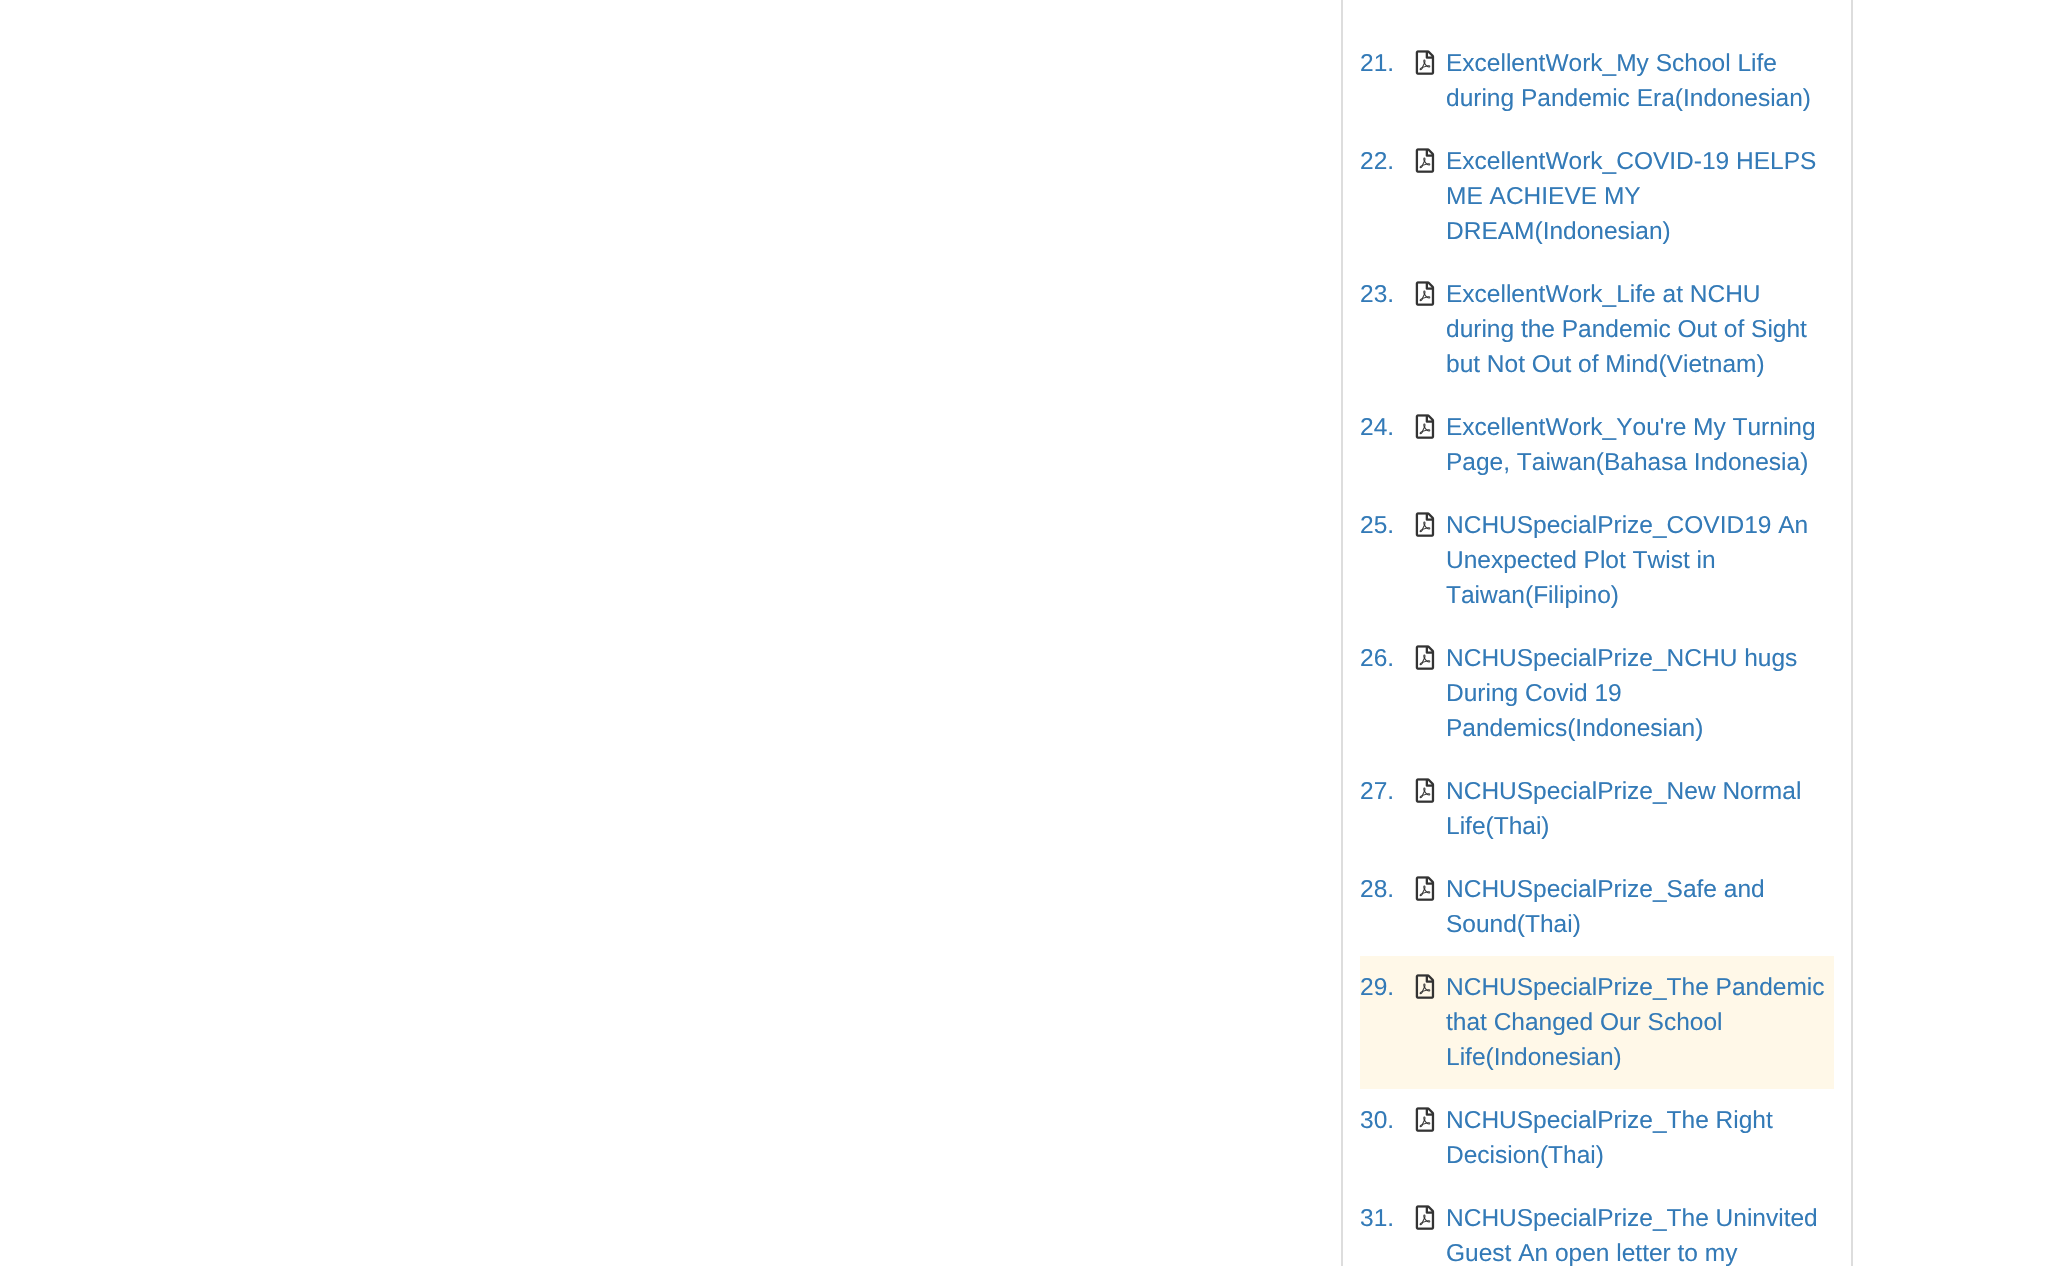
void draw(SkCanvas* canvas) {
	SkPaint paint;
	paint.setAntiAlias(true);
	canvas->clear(0xffffffff);
	paint.setStroke(true);
	paint.setStrokeWidth(2);
	paint.setColor(0xffdddddd);
	canvas->drawRect(SkRect::MakeXYWH(1342, -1, 510, 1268), paint);
	SkFont f1(fontMgr->matchFamilyStyle("Liberation Sans", SkFontStyle::Normal()), 24.5);
	f1.setSubpixel(true);
	paint.setStroke(false);
	paint.setColor(0xff337ab7);
	canvas->drawString("21.", 1360, 71, f1, paint);
	canvas->drawImageRect(SkImages::DeferredFromEncodedData(SkData::MakeFromFileName("img1.png")), SkRect::MakeXYWH(1415, 50, 20, 25), SkSamplingOptions());
	canvas->drawString("ExcellentWork_My School Life", 1446, 71, f1, paint);
	canvas->drawString("during Pandemic Era(Indonesian)", 1446, 106, f1, paint);
	canvas->drawString("22.", 1360, 169, f1, paint);
	canvas->drawImageRect(SkImages::DeferredFromEncodedData(SkData::MakeFromFileName("img1.png")), SkRect::MakeXYWH(1415, 148, 20, 25), SkSamplingOptions());
	canvas->drawString("ExcellentWork_COVID-19 HELPS", 1446, 169, f1, paint);
	canvas->drawString("ME ACHIEVE MY", 1446, 204, f1, paint);
	canvas->drawString("DREAM(Indonesian)", 1446, 239, f1, paint);
	canvas->drawString("23.", 1360, 302, f1, paint);
	canvas->drawImageRect(SkImages::DeferredFromEncodedData(SkData::MakeFromFileName("img1.png")), SkRect::MakeXYWH(1415, 281, 20, 25), SkSamplingOptions());
	canvas->drawString("ExcellentWork_Life at NCHU", 1446, 302, f1, paint);
	canvas->drawString("during the Pandemic Out of Sight", 1446, 337, f1, paint);
	canvas->drawString("but Not Out of Mind(Vietnam)", 1446, 372, f1, paint);
	canvas->drawString("24.", 1360, 435, f1, paint);
	canvas->drawImageRect(SkImages::DeferredFromEncodedData(SkData::MakeFromFileName("img1.png")), SkRect::MakeXYWH(1415, 414, 20, 25), SkSamplingOptions());
	canvas->drawString("ExcellentWork_You're My Turning", 1446, 435, f1, paint);
	canvas->drawString("Page, Taiwan(Bahasa Indonesia)", 1446, 470, f1, paint);
	canvas->drawString("25.", 1360, 533, f1, paint);
	canvas->drawImageRect(SkImages::DeferredFromEncodedData(SkData::MakeFromFileName("img1.png")), SkRect::MakeXYWH(1415, 512, 20, 25), SkSamplingOptions());
	canvas->drawString("NCHUSpecialPrize_COVID19 An", 1446, 533, f1, paint);
	canvas->drawString("Unexpected Plot Twist in", 1446, 568, f1, paint);
	canvas->drawString("Taiwan(Filipino)", 1446, 603, f1, paint);
	canvas->drawString("26.", 1360, 666, f1, paint);
	canvas->drawImageRect(SkImages::DeferredFromEncodedData(SkData::MakeFromFileName("img1.png")), SkRect::MakeXYWH(1415, 645, 20, 25), SkSamplingOptions());
	canvas->drawString("NCHUSpecialPrize_NCHU hugs", 1446, 666, f1, paint);
	canvas->drawString("During Covid 19", 1446, 701, f1, paint);
	canvas->drawString("Pandemics(Indonesian)", 1446, 736, f1, paint);
	canvas->drawString("27.", 1360, 799, f1, paint);
	canvas->drawImageRect(SkImages::DeferredFromEncodedData(SkData::MakeFromFileName("img1.png")), SkRect::MakeXYWH(1415, 778, 20, 25), SkSamplingOptions());
	canvas->drawString("NCHUSpecialPrize_New Normal", 1446, 799, f1, paint);
	canvas->drawString("Life(Thai)", 1446, 834, f1, paint);
	canvas->drawString("28.", 1360, 897, f1, paint);
	canvas->drawImageRect(SkImages::DeferredFromEncodedData(SkData::MakeFromFileName("img1.png")), SkRect::MakeXYWH(1415, 876, 20, 25), SkSamplingOptions());
	canvas->drawString("NCHUSpecialPrize_Safe and", 1446, 897, f1, paint);
	canvas->drawString("Sound(Thai)", 1446, 932, f1, paint);
	paint.setColor(0xfffff8e8);
	canvas->drawRect(SkRect::MakeXYWH(1360, 956, 474, 133), paint);
	paint.setColor(0xff337ab7);
	canvas->drawString("29.", 1360, 995, f1, paint);
	canvas->drawImageRect(SkImages::DeferredFromEncodedData(SkData::MakeFromFileName("img2.png")), SkRect::MakeXYWH(1415, 974, 20, 25), SkSamplingOptions());
	canvas->drawString("NCHUSpecialPrize_The Pandemic", 1446, 995, f1, paint);
	canvas->drawString("that Changed Our School", 1446, 1030, f1, paint);
	canvas->drawString("Life(Indonesian)", 1446, 1065, f1, paint);
	canvas->drawString("30.", 1360, 1128, f1, paint);
	canvas->drawImageRect(SkImages::DeferredFromEncodedData(SkData::MakeFromFileName("img1.png")), SkRect::MakeXYWH(1415, 1107, 20, 25), SkSamplingOptions());
	canvas->drawString("NCHUSpecialPrize_The Right", 1446, 1128, f1, paint);
	canvas->drawString("Decision(Thai)", 1446, 1163, f1, paint);
	canvas->drawString("31.", 1360, 1226, f1, paint);
	canvas->drawImageRect(SkImages::DeferredFromEncodedData(SkData::MakeFromFileName("img1.png")), SkRect::MakeXYWH(1415, 1205, 20, 25), SkSamplingOptions());
	canvas->drawString("NCHUSpecialPrize_The Uninvited", 1446, 1226, f1, paint);
	canvas->drawString("Guest An open letter to my", 1446, 1261, f1, paint);
}
